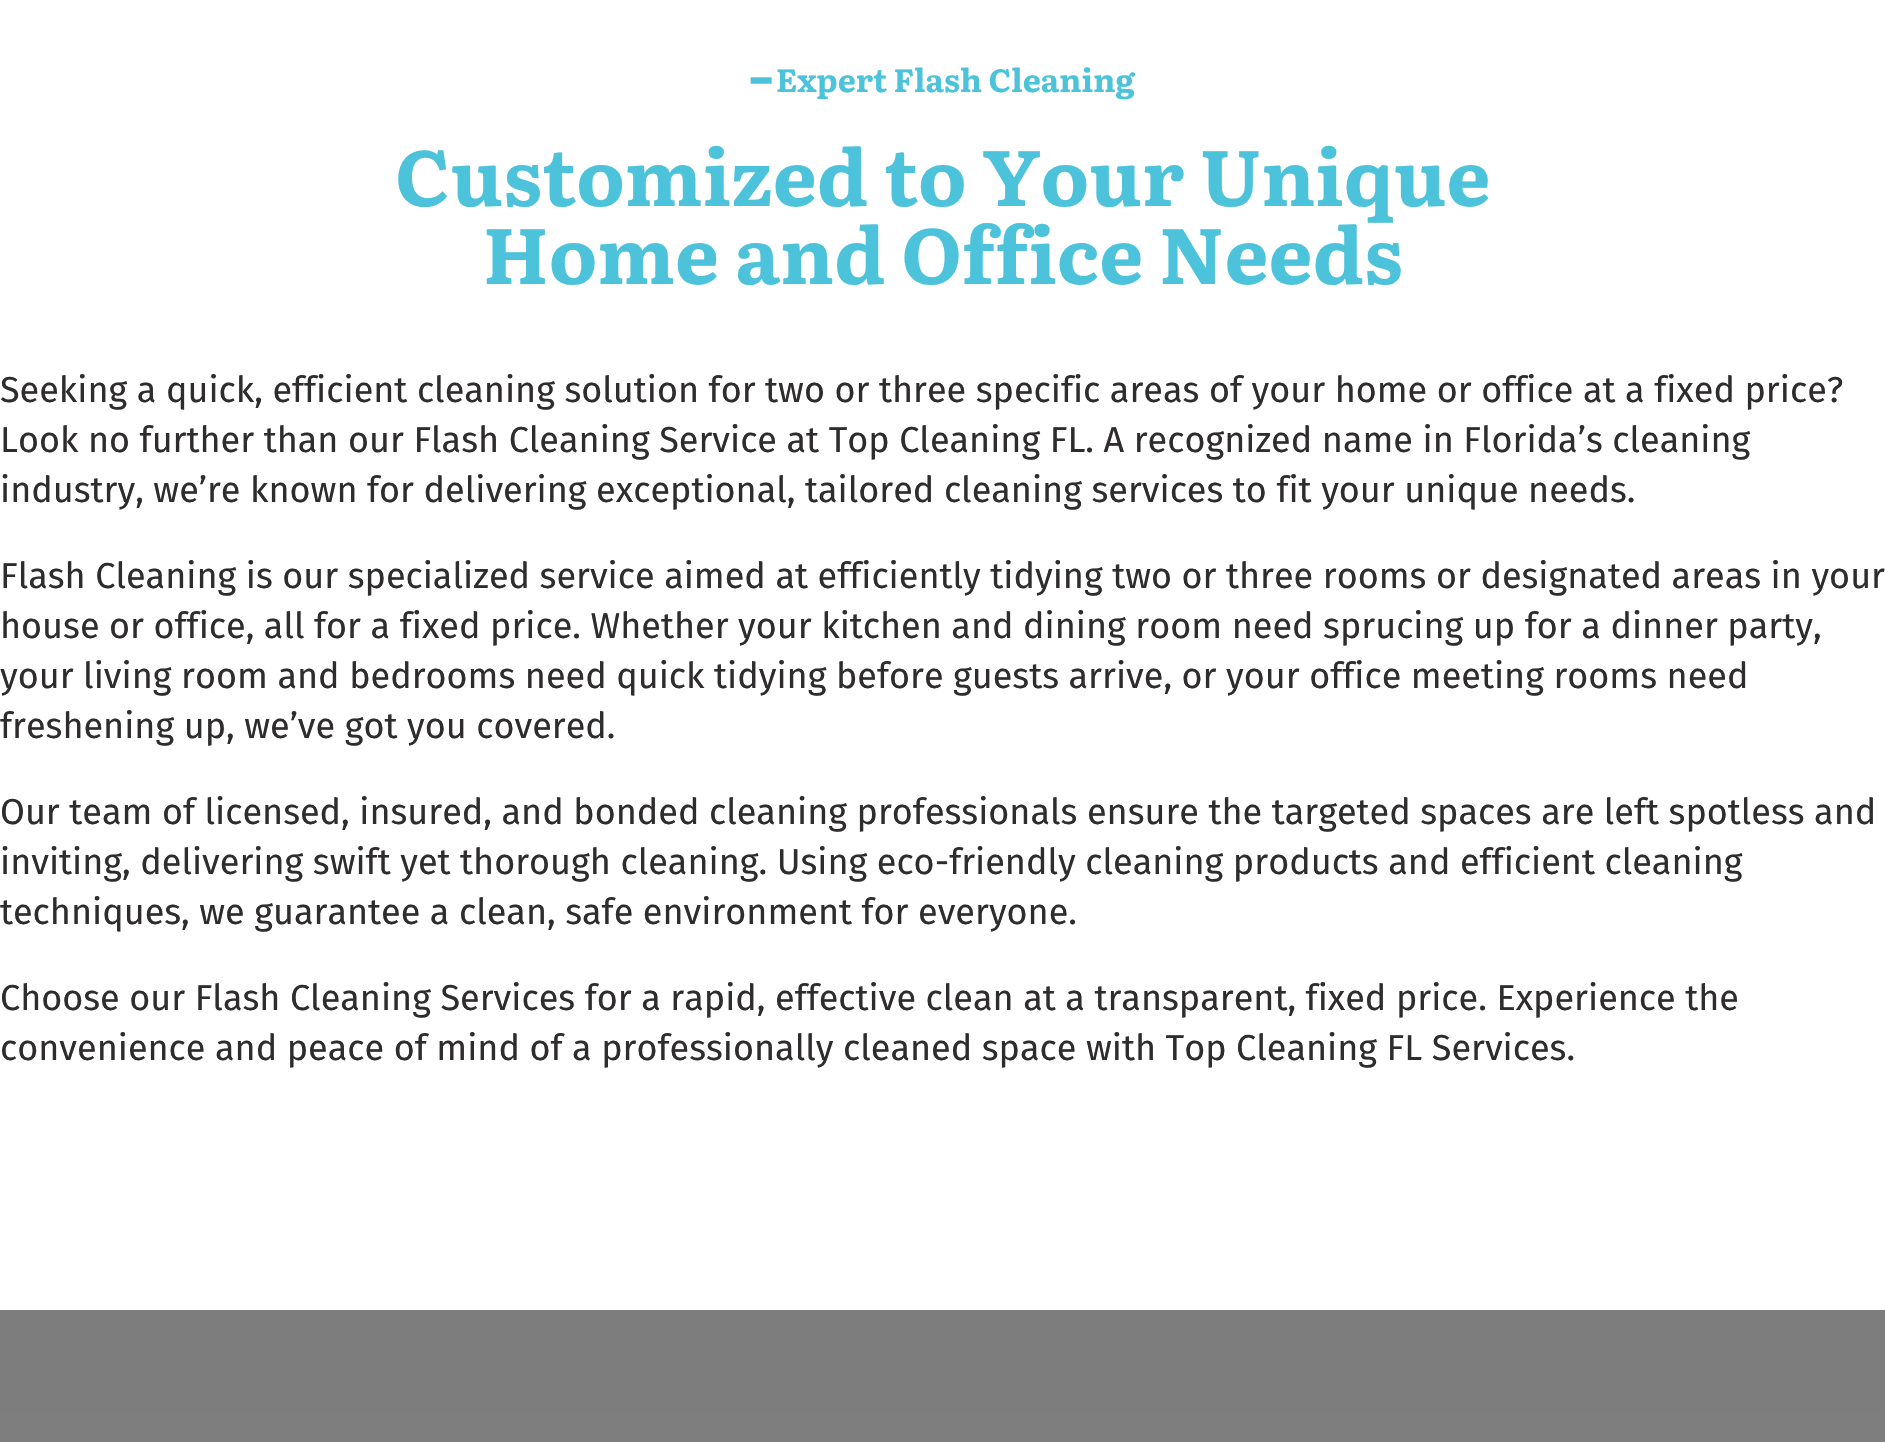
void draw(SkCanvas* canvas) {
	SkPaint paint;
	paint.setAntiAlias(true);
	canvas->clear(0xffffffff);
	SkFont f1(fontMgr->matchFamilyStyle("DejaVu Sans", SkFontStyle::Bold()), 32);
	f1.setSubpixel(true);
	paint.setColor(0xff4cc3db);
	canvas->drawString("━", 751, 92, f1, paint);
	SkFont f2(fontMgr->matchFamilyStyle("Literata", SkFontStyle::Bold()), 32);
	f2.setSubpixel(true);
	canvas->drawString("Expert Flash Cleaning", 776, 92, f2, paint);
	SkFont f3(fontMgr->matchFamilyStyle("Literata", SkFontStyle::Bold()), 78);
	f3.setSubpixel(true);
	canvas->drawString("Customized to Your Unique", 395, 206, f3, paint);
	canvas->drawString("Home and Office Needs", 483, 284, f3, paint);
	SkFont f4(fontMgr->matchFamilyStyle("Fira Sans", SkFontStyle::Normal()), 36);
	f4.setSubpixel(true);
	paint.setColor(0xff2e2c2c);
	canvas->drawString("Seeking a quick, efficient cleaning solution for two or three specific areas of your home or office at a fixed price?", 0, 402, f4, paint);
	canvas->drawString("Look no further than our Flash Cleaning Service at Top Cleaning FL. A recognized name in Florida’s cleaning", 0, 452, f4, paint);
	canvas->drawString("industry, we’re known for delivering exceptional, tailored cleaning services to fit your unique needs.", 0, 502, f4, paint);
	canvas->drawString("Flash Cleaning is our specialized service aimed at efficiently tidying two or three rooms or designated areas in your", 0, 588, f4, paint);
	canvas->drawString("house or office, all for a fixed price. Whether your kitchen and dining room need sprucing up for a dinner party,", 0, 638, f4, paint);
	canvas->drawString("your living room and bedrooms need quick tidying before guests arrive, or your office meeting rooms need", 0, 688, f4, paint);
	canvas->drawString("freshening up, we’ve got you covered.", 0, 738, f4, paint);
	canvas->drawString("Our team of licensed, insured, and bonded cleaning professionals ensure the targeted spaces are left spotless and", 0, 824, f4, paint);
	canvas->drawString("inviting, delivering swift yet thorough cleaning. Using eco-friendly cleaning products and efficient cleaning", 0, 874, f4, paint);
	canvas->drawString("techniques, we guarantee a clean, safe environment for everyone.", 0, 924, f4, paint);
	canvas->drawString("Choose our Flash Cleaning Services for a rapid, effective clean at a transparent, fixed price. Experience the", 0, 1010, f4, paint);
	canvas->drawString("convenience and peace of mind of a professionally cleaned space with Top Cleaning FL Services.", 0, 1060, f4, paint);
	{
		const SkColor colors[] = {0xff7d7d7d, 0xff818181};
		const float stops[] = {0, 1};
		const SkPoint ends[] = {{943, 1310}, {943, 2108}};
		paint.setShader(SkGradientShader::MakeLinear(ends, colors, stops, 2, SkTileMode::kClamp));
		paint.setAlpha(255);
	}
	canvas->drawRect(SkRect::MakeXYWH(0, 1310, 1885, 132), paint);
}
